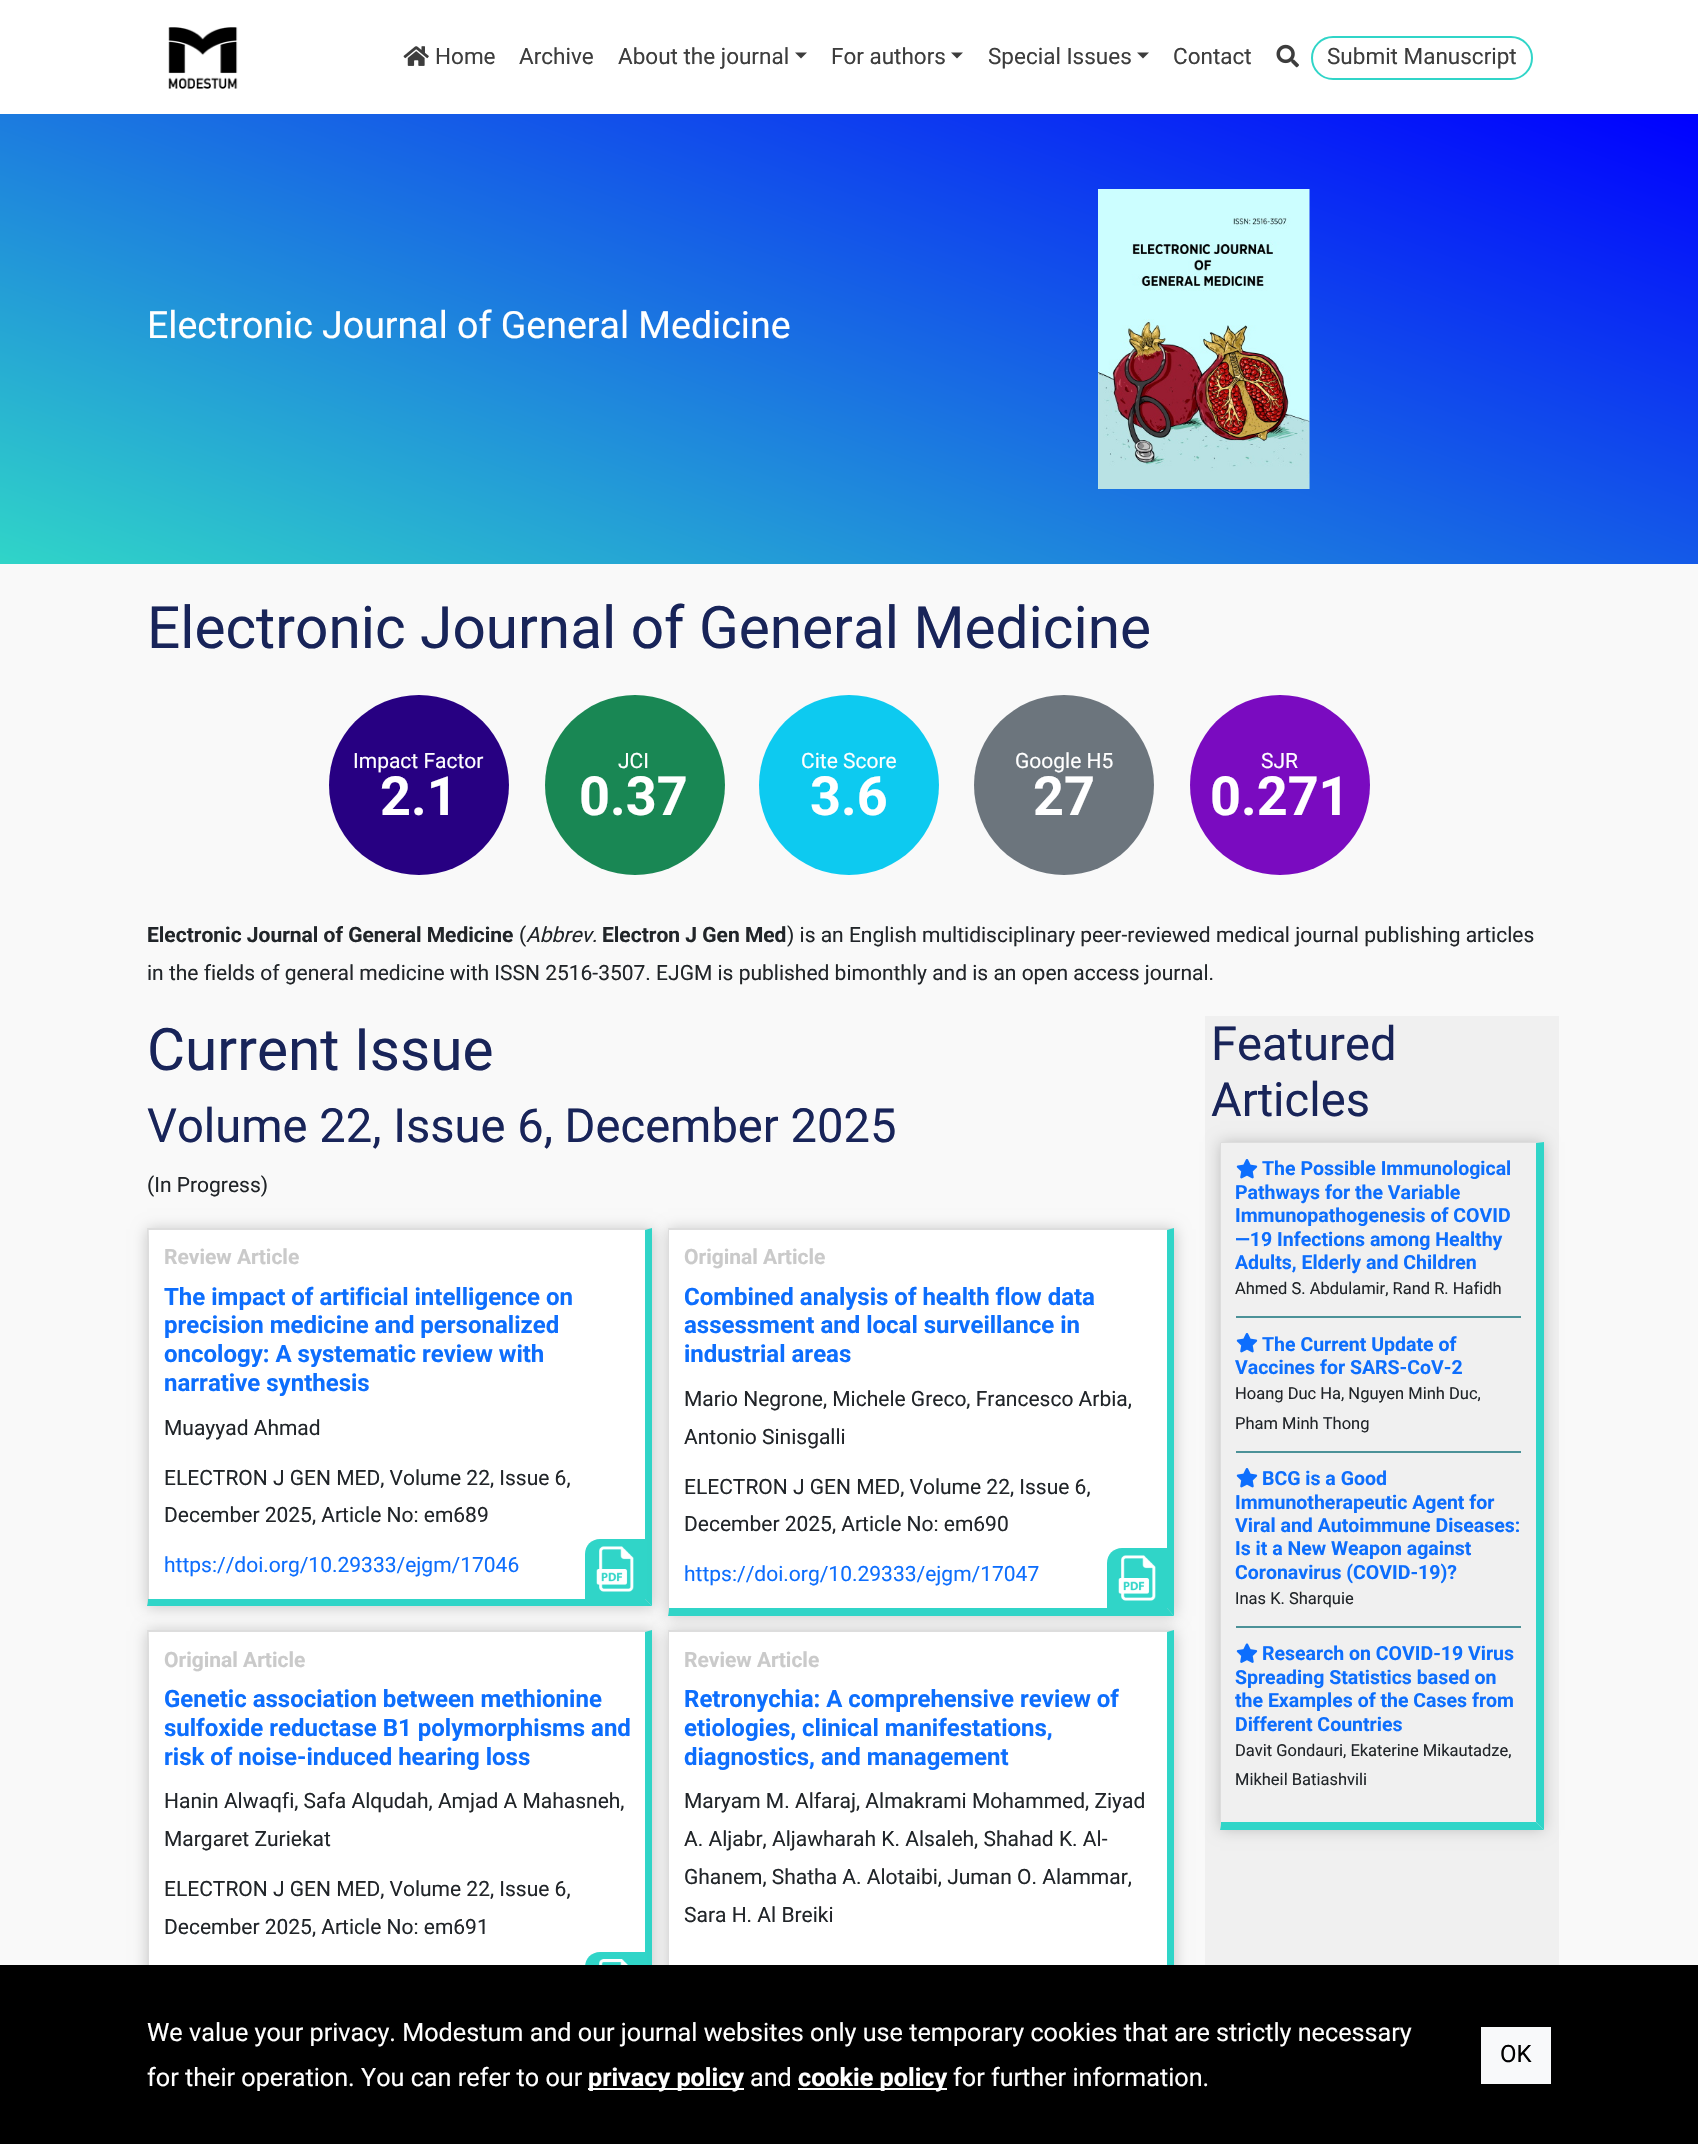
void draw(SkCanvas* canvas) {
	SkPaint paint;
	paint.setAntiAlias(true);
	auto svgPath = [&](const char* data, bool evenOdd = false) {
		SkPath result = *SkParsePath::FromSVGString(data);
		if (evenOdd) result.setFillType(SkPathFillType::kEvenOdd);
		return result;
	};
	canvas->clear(0xffffffff);
	canvas->drawImageRect(SkImages::DeferredFromEncodedData(SkData::MakeFromFileName("img1.png")), SkRect::MakeXYWH(168, 27, 70, 62), SkSamplingOptions());
	canvas->drawImageRect(SkImages::DeferredFromEncodedData(SkData::MakeFromFileName("img2.png")), SkRect::MakeXYWH(403, 46, 26, 20), SkSamplingOptions());
	SkFont f1(fontMgr->matchFamilyStyle("Roboto", SkFontStyle::Normal()), 22.5);
	f1.setSubpixel(true);
	paint.setColor(0xff3d3d3d);
	canvas->drawString("Home", 435, 64, f1, paint);
	canvas->drawString("Archive", 519, 64, f1, paint);
	canvas->drawString("About the journal", 618, 64, f1, paint);
	canvas->drawPath(svgPath("M795 52.5H807L801 58.5Z"), paint);
	canvas->drawString("For authors", 831, 64, f1, paint);
	canvas->drawPath(svgPath("M951 52.5H963L957 58.5Z"), paint);
	canvas->drawString("Special Issues", 988, 64, f1, paint);
	canvas->drawPath(svgPath("M1137 52.5H1149L1143 58.5Z"), paint);
	canvas->drawString("Contact", 1173, 64, f1, paint);
	canvas->drawImageRect(SkImages::DeferredFromEncodedData(SkData::MakeFromFileName("img3.png")), SkRect::MakeXYWH(1276, 44, 23, 24), SkSamplingOptions());
	paint.setStroke(true);
	paint.setStrokeWidth(2);
	paint.setColor(0xff30d5c8);
	canvas->drawRoundRect(SkRect::MakeXYWH(1312, 37, 220, 42), 21, 21, paint);
	paint.setStroke(false);
	paint.setColor(0xff3d3d3d);
	canvas->drawString("Submit Manuscript", 1327, 64, f1, paint);
	{
		const SkColor colors[] = {0xff30d5c8, 0xff0000ff};
		const float stops[] = {0, 1};
		const SkPoint ends[] = {{677, 811}, {1021, -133}};
		paint.setShader(SkGradientShader::MakeLinear(ends, colors, stops, 2, SkTileMode::kClamp));
		paint.setAlpha(255);
	}
	canvas->drawRect(SkRect::MakeXYWH(0, 114, 1698, 450), paint);
	SkFont f2(fontMgr->matchFamilyStyle("Roboto", SkFontStyle::Normal()), 37.5);
	f2.setSubpixel(true);
	paint.setShader(nullptr);
	paint.setColor(0xffffffff);
	canvas->drawString("Electronic Journal of General Medicine", 147, 338, f2, paint);
	canvas->drawImageRect(SkImages::DeferredFromEncodedData(SkData::MakeFromFileName("img4.png")), SkRect::MakeXYWH(1098, 189, 212, 300), SkSamplingOptions());
	paint.setColor(0xfff9f9f9);
	canvas->drawRect(SkRect::MakeXYWH(0, 564, 1698, 1401), paint);
	SkFont f3(fontMgr->matchFamilyStyle("Roboto", SkFontStyle::Normal()), 58.5);
	f3.setSubpixel(true);
	paint.setColor(0xff182459);
	canvas->drawString("Electronic Journal of General Medicine", 147, 648, f3, paint);
	paint.setColor(0xff270082);
	canvas->drawCircle(419, 785, 90, paint);
	SkFont f4(fontMgr->matchFamilyStyle("Roboto", SkFontStyle::Normal()), 21);
	f4.setSubpixel(true);
	paint.setColor(0xffffffff);
	canvas->drawString("Impact Factor", 353, 768, f4, paint);
	SkFont f5(fontMgr->matchFamilyStyle("Roboto", SkFontStyle::Bold()), 54);
	f5.setSubpixel(true);
	canvas->drawString("2.1", 380, 815, f5, paint);
	paint.setColor(0xff198754);
	canvas->drawCircle(635, 785, 90, paint);
	paint.setColor(0xffffffff);
	canvas->drawString("JCI", 618, 768, f4, paint);
	canvas->drawString("0.37", 579, 815, f5, paint);
	paint.setColor(0xff0dcaf0);
	canvas->drawCircle(849, 785, 90, paint);
	paint.setColor(0xffffffff);
	canvas->drawString("Cite Score", 801, 768, f4, paint);
	canvas->drawString("3.6", 810, 815, f5, paint);
	paint.setColor(0xff6c757d);
	canvas->drawCircle(1064, 785, 90, paint);
	paint.setColor(0xffffffff);
	canvas->drawString("Google H5", 1015, 768, f4, paint);
	canvas->drawString("27", 1033, 815, f5, paint);
	paint.setColor(0xff7a0bc0);
	canvas->drawCircle(1280, 785, 90, paint);
	paint.setColor(0xffffffff);
	canvas->drawString("SJR", 1261, 768, f4, paint);
	canvas->drawString("0.271", 1210, 815, f5, paint);
	SkFont f6(fontMgr->matchFamilyStyle("Roboto", SkFontStyle::Bold()), 21);
	f6.setSubpixel(true);
	paint.setColor(0xff212529);
	canvas->drawString("Electronic Journal of General Medicine", 147, 942, f6, paint);
	canvas->drawString("(", 519, 942, f4, paint);
	SkFont f7(fontMgr->matchFamilyStyle("Roboto", SkFontStyle::Italic()), 21);
	f7.setSubpixel(true);
	canvas->drawString("Abbrev.", 526, 942, f7, paint);
	canvas->drawString("Electron J Gen Med", 602, 942, f6, paint);
	canvas->drawString(") is an English multidisciplinary peer-reviewed medical journal publishing articles", 787, 942, f4, paint);
	canvas->drawString("in the fields of general medicine with ISSN 2516-3507. EJGM is published bimonthly and is an open access journal.", 147, 980, f4, paint);
	paint.setColor(0xff182459);
	canvas->drawString("Current Issue", 147, 1070, f3, paint);
	SkFont f8(fontMgr->matchFamilyStyle("Roboto", SkFontStyle::Normal()), 47.1);
	f8.setSubpixel(true);
	canvas->drawString("Volume 22, Issue 6, December 2025", 147, 1142, f8, paint);
	paint.setColor(0xff212529);
	canvas->drawString("(In Progress)", 147, 1192, f4, paint);
	paint.setColor(0x33000000);
	paint.setMaskFilter(SkMaskFilter::MakeBlur(kNormal_SkBlurStyle, 7));
	canvas->drawRect(SkRect::MakeXYWH(147, 1229, 506, 378), paint);
	paint.setMaskFilter(nullptr);
	paint.setColor(0xffffffff);
	canvas->drawRect(SkRect::MakeXYWH(149, 1230, 496, 369), paint);
	paint.setColor(0xffdddddd);
	canvas->drawPath(svgPath("M147 1228H652L645 1230H148Z"), paint);
	paint.setColor(0xff30d5c8);
	canvas->drawPath(svgPath("M652 1228V1606L645 1599V1230Z"), paint);
	canvas->drawPath(svgPath("M652 1606H147L148 1599H645Z"), paint);
	paint.setColor(0xffdddddd);
	canvas->drawPath(svgPath("M147 1606V1228L148 1230V1599Z"), paint);
	paint.setColor(0xffcacaca);
	canvas->drawString("Review Article", 164, 1264, f6, paint);
	SkFont f9(fontMgr->matchFamilyStyle("Roboto", SkFontStyle::Bold()), 24);
	f9.setSubpixel(true);
	paint.setColor(0xff0d6efd);
	canvas->drawString("The impact of artificial intelligence on", 164, 1305, f9, paint);
	canvas->drawString("precision medicine and personalized", 164, 1333, f9, paint);
	canvas->drawString("oncology: A systematic review with", 164, 1362, f9, paint);
	canvas->drawString("narrative synthesis", 164, 1391, f9, paint);
	paint.setColor(0xff212529);
	canvas->drawString("Muayyad Ahmad", 164, 1435, f4, paint);
	canvas->drawString("ELECTRON J GEN MED, Volume 22, Issue 6,", 164, 1485, f4, paint);
	canvas->drawString("December 2025, Article No: em689", 164, 1522, f4, paint);
	paint.setColor(0xff0d6efd);
	canvas->drawString("https://doi.org/10.29333/ejgm/17046", 164, 1572, f4, paint);
	paint.setColor(0xff30d5c8);
	canvas->drawPath(svgPath("M600 1539H645V1599H585V1554C585 1545.5 591.5 1539 600 1539Z"), paint);
	canvas->drawImageRect(SkImages::DeferredFromEncodedData(SkData::MakeFromFileName("img5.png")), SkRect::MakeXYWH(596, 1546, 38, 46), SkSamplingOptions());
	paint.setColor(0x33000000);
	paint.setMaskFilter(SkMaskFilter::MakeBlur(kNormal_SkBlurStyle, 7));
	canvas->drawRect(SkRect::MakeXYWH(668, 1229, 507, 387), paint);
	paint.setMaskFilter(nullptr);
	paint.setColor(0xffffffff);
	canvas->drawRect(SkRect::MakeXYWH(669, 1230, 498, 378), paint);
	paint.setColor(0xffdddddd);
	canvas->drawPath(svgPath("M668 1228H1174L1167 1230H669Z"), paint);
	paint.setColor(0xff30d5c8);
	canvas->drawPath(svgPath("M1174 1228V1616L1167 1608V1230Z"), paint);
	canvas->drawPath(svgPath("M1174 1616H668L669 1608H1167Z"), paint);
	paint.setColor(0xffdddddd);
	canvas->drawPath(svgPath("M668 1616V1228L669 1230V1608Z"), paint);
	paint.setColor(0xffcacaca);
	canvas->drawString("Original Article", 684, 1264, f6, paint);
	paint.setColor(0xff0d6efd);
	canvas->drawString("Combined analysis of health flow data", 684, 1305, f9, paint);
	canvas->drawString("assessment and local surveillance in", 684, 1333, f9, paint);
	canvas->drawString("industrial areas", 684, 1362, f9, paint);
	paint.setColor(0xff212529);
	canvas->drawString("Mario Negrone, Michele Greco, Francesco Arbia,", 684, 1406, f4, paint);
	canvas->drawString("Antonio Sinisgalli", 684, 1444, f4, paint);
	canvas->drawString("ELECTRON J GEN MED, Volume 22, Issue 6,", 684, 1494, f4, paint);
	canvas->drawString("December 2025, Article No: em690", 684, 1531, f4, paint);
	paint.setColor(0xff0d6efd);
	canvas->drawString("https://doi.org/10.29333/ejgm/17047", 684, 1581, f4, paint);
	paint.setColor(0xff30d5c8);
	canvas->drawPath(svgPath("M1122 1548H1167V1608H1107V1563C1107 1554.5 1113.5 1548 1122 1548Z"), paint);
	canvas->drawImageRect(SkImages::DeferredFromEncodedData(SkData::MakeFromFileName("img5.png")), SkRect::MakeXYWH(1118, 1555, 38, 46), SkSamplingOptions());
	paint.setColor(0x33000000);
	paint.setMaskFilter(SkMaskFilter::MakeBlur(kNormal_SkBlurStyle, 7));
	canvas->drawRect(SkRect::MakeXYWH(147, 1631, 506, 388), paint);
	paint.setMaskFilter(nullptr);
	paint.setColor(0xffffffff);
	canvas->drawRect(SkRect::MakeXYWH(149, 1632, 496, 333), paint);
	paint.setColor(0xffdddddd);
	canvas->drawPath(svgPath("M147 1630H652L645 1632H148Z"), paint);
	paint.setColor(0xff30d5c8);
	canvas->drawPath(svgPath("M652 1630V2019L645 2012V1632Z"), paint);
	paint.setColor(0xffdddddd);
	canvas->drawPath(svgPath("M147 2019V1630L148 1632V2012Z"), paint);
	paint.setColor(0xffcacaca);
	canvas->drawString("Original Article", 164, 1667, f6, paint);
	paint.setColor(0xff0d6efd);
	canvas->drawString("Genetic association between methionine", 164, 1707, f9, paint);
	canvas->drawString("sulfoxide reductase B1 polymorphisms and", 164, 1736, f9, paint);
	canvas->drawString("risk of noise-induced hearing loss", 164, 1765, f9, paint);
	paint.setColor(0xff212529);
	canvas->drawString("Hanin Alwaqfi, Safa Alqudah, Amjad A Mahasneh,", 164, 1808, f4, paint);
	canvas->drawString("Margaret Zuriekat", 164, 1846, f4, paint);
	canvas->drawString("ELECTRON J GEN MED, Volume 22, Issue 6,", 164, 1896, f4, paint);
	canvas->drawString("December 2025, Article No: em691", 164, 1934, f4, paint);
	paint.setColor(0xff30d5c8);
	canvas->drawPath(svgPath("M600 1952H645V2012H585V1967C585 1958.5 591.5 1952 600 1952Z"), paint);
	canvas->drawImageRect(SkImages::DeferredFromEncodedData(SkData::MakeFromFileName("img6.png")), SkRect::MakeXYWH(599, 1959, 30, 6), SkSamplingOptions());
	paint.setColor(0x33000000);
	paint.setMaskFilter(SkMaskFilter::MakeBlur(kNormal_SkBlurStyle, 7));
	canvas->drawRect(SkRect::MakeXYWH(668, 1631, 507, 463), paint);
	paint.setMaskFilter(nullptr);
	paint.setColor(0xffffffff);
	canvas->drawRect(SkRect::MakeXYWH(669, 1632, 498, 333), paint);
	paint.setColor(0xffdddddd);
	canvas->drawPath(svgPath("M668 1630H1174L1167 1632H669Z"), paint);
	paint.setColor(0xff30d5c8);
	canvas->drawPath(svgPath("M1174 1630V2094L1167 2086V1632Z"), paint);
	paint.setColor(0xffdddddd);
	canvas->drawPath(svgPath("M668 2094V1630L669 1632V2086Z"), paint);
	paint.setColor(0xffcacaca);
	canvas->drawString("Review Article", 684, 1667, f6, paint);
	paint.setColor(0xff0d6efd);
	canvas->drawString("Retronychia: A comprehensive review of", 684, 1707, f9, paint);
	canvas->drawString("etiologies, clinical manifestations,", 684, 1736, f9, paint);
	canvas->drawString("diagnostics, and management", 684, 1765, f9, paint);
	paint.setColor(0xff212529);
	canvas->drawString("Maryam M. Alfaraj, Almakrami Mohammed, Ziyad", 684, 1808, f4, paint);
	canvas->drawString("A. Aljabr, Aljawharah K. Alsaleh, Shahad K. Al-", 684, 1846, f4, paint);
	canvas->drawString("Ghanem, Shatha A. Alotaibi, Juman O. Alammar,", 684, 1884, f4, paint);
	canvas->drawString("Sara H. Al Breiki", 684, 1922, f4, paint);
	paint.setColor(0xfff0f0f0);
	canvas->drawRect(SkRect::MakeXYWH(1205, 1016, 354, 949), paint);
	paint.setColor(0xff182459);
	canvas->drawString("Featured", 1211, 1060, f8, paint);
	canvas->drawString("Articles", 1211, 1116, f8, paint);
	canvas->save();
	canvas->clipPath(svgPath("M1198 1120H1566V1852H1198ZM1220 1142H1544V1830H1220Z", true), true);
	paint.setColor(0x33000000);
	paint.setMaskFilter(SkMaskFilter::MakeBlur(kNormal_SkBlurStyle, 7));
	canvas->drawRect(SkRect::MakeXYWH(1220, 1142, 324, 688), paint);
	paint.setMaskFilter(nullptr);
	canvas->restore();
	paint.setColor(0xffdddddd);
	canvas->drawPath(svgPath("M1220 1142H1544L1536 1143H1221Z"), paint);
	paint.setColor(0xff30d5c8);
	canvas->drawPath(svgPath("M1544 1142V1830L1536 1822V1143Z"), paint);
	canvas->drawPath(svgPath("M1544 1830H1220L1221 1822H1536Z"), paint);
	paint.setColor(0xffdddddd);
	canvas->drawPath(svgPath("M1220 1830V1142L1221 1143V1822Z"), paint);
	paint.setColor(0xff4c9298);
	canvas->drawRect(SkRect::MakeXYWH(1236, 1316, 285, 2), paint);
	canvas->drawImageRect(SkImages::DeferredFromEncodedData(SkData::MakeFromFileName("img7.png")), SkRect::MakeXYWH(1236, 1159, 22, 20), SkSamplingOptions());
	SkFont f10(fontMgr->matchFamilyStyle("Roboto", SkFontStyle::Bold()), 19.5);
	f10.setSubpixel(true);
	paint.setColor(0xff0d6efd);
	canvas->drawString("The Possible Immunological", 1262, 1175, f10, paint);
	canvas->drawString("Pathways for the Variable", 1235, 1199, f10, paint);
	canvas->drawString("Immunopathogenesis of COVID", 1235, 1222, f10, paint);
	canvas->drawString("—19 Infections among Healthy", 1235, 1246, f10, paint);
	canvas->drawString("Adults, Elderly and Children", 1235, 1269, f10, paint);
	SkFont f11(fontMgr->matchFamilyStyle("Roboto", SkFontStyle::Normal()), 16.5);
	f11.setSubpixel(true);
	paint.setColor(0xff212529);
	canvas->drawString("Ahmed S. Abdulamir, Rand R. Hafidh", 1235, 1294, f11, paint);
	paint.setColor(0xff4c9298);
	canvas->drawRect(SkRect::MakeXYWH(1236, 1451, 285, 2), paint);
	canvas->drawImageRect(SkImages::DeferredFromEncodedData(SkData::MakeFromFileName("img7.png")), SkRect::MakeXYWH(1236, 1333, 22, 20), SkSamplingOptions());
	paint.setColor(0xff0d6efd);
	canvas->drawString("The Current Update of", 1262, 1351, f10, paint);
	canvas->drawString("Vaccines for SARS-CoV-2", 1235, 1374, f10, paint);
	paint.setColor(0xff212529);
	canvas->drawString("Hoang Duc Ha, Nguyen Minh Duc,", 1235, 1399, f11, paint);
	canvas->drawString("Pham Minh Thong", 1235, 1429, f11, paint);
	paint.setColor(0xff4c9298);
	canvas->drawRect(SkRect::MakeXYWH(1236, 1626, 285, 2), paint);
	canvas->drawImageRect(SkImages::DeferredFromEncodedData(SkData::MakeFromFileName("img7.png")), SkRect::MakeXYWH(1236, 1468, 22, 20), SkSamplingOptions());
	paint.setColor(0xff0d6efd);
	canvas->drawString("BCG is a Good", 1262, 1485, f10, paint);
	canvas->drawString("Immunotherapeutic Agent for", 1235, 1509, f10, paint);
	canvas->drawString("Viral and Autoimmune Diseases:", 1235, 1532, f10, paint);
	canvas->drawString("Is it a New Weapon against", 1235, 1555, f10, paint);
	canvas->drawString("Coronavirus (COVID-19)?", 1235, 1579, f10, paint);
	paint.setColor(0xff212529);
	canvas->drawString("Inas K. Sharquie", 1235, 1604, f11, paint);
	canvas->drawImageRect(SkImages::DeferredFromEncodedData(SkData::MakeFromFileName("img8.png")), SkRect::MakeXYWH(1236, 1643, 22, 20), SkSamplingOptions());
	paint.setColor(0xff0d6efd);
	canvas->drawString("Research on COVID-19 Virus", 1262, 1660, f10, paint);
	canvas->drawString("Spreading Statistics based on", 1235, 1684, f10, paint);
	canvas->drawString("the Examples of the Cases from", 1235, 1707, f10, paint);
	canvas->drawString("Different Countries", 1235, 1731, f10, paint);
	paint.setColor(0xff212529);
	canvas->drawString("Davit Gondauri, Ekaterine Mikautadze,", 1235, 1756, f11, paint);
	canvas->drawString("Mikheil Batiashvili", 1235, 1785, f11, paint);
	paint.setColor(0xff000000);
	canvas->drawRect(SkRect::MakeXYWH(0, 1965, 1698, 179), paint);
	SkFont f12(fontMgr->matchFamilyStyle("Roboto", SkFontStyle::Normal()), 25.2);
	f12.setSubpixel(true);
	paint.setColor(0xffffffff);
	canvas->drawString("We value your privacy. Modestum and our journal websites only use temporary cookies that are strictly necessary", 147, 2041, f12, paint);
	canvas->drawString("for their operation. You can refer to our", 147, 2086, f12, paint);
	canvas->drawRect(SkRect::MakeXYWH(588, 2088, 156, 2), paint);
	SkFont f13(fontMgr->matchFamilyStyle("Roboto", SkFontStyle::Bold()), 25.2);
	f13.setSubpixel(true);
	canvas->drawString("privacy policy", 588, 2086, f13, paint);
	canvas->drawString("and", 750, 2086, f12, paint);
	canvas->drawRect(SkRect::MakeXYWH(798, 2088, 149, 2), paint);
	canvas->drawString("cookie policy", 798, 2086, f13, paint);
	canvas->drawString("for further information.", 953, 2086, f12, paint);
	paint.setColor(0xfff8f9fa);
	canvas->drawRect(SkRect::MakeXYWH(1481, 2027, 70, 57), paint);
	SkFont f14(fontMgr->matchFamilyStyle("Roboto", SkFontStyle::Normal()), 24);
	f14.setSubpixel(true);
	paint.setColor(0xff000000);
	canvas->drawString("OK", 1500, 2062, f14, paint);
}
